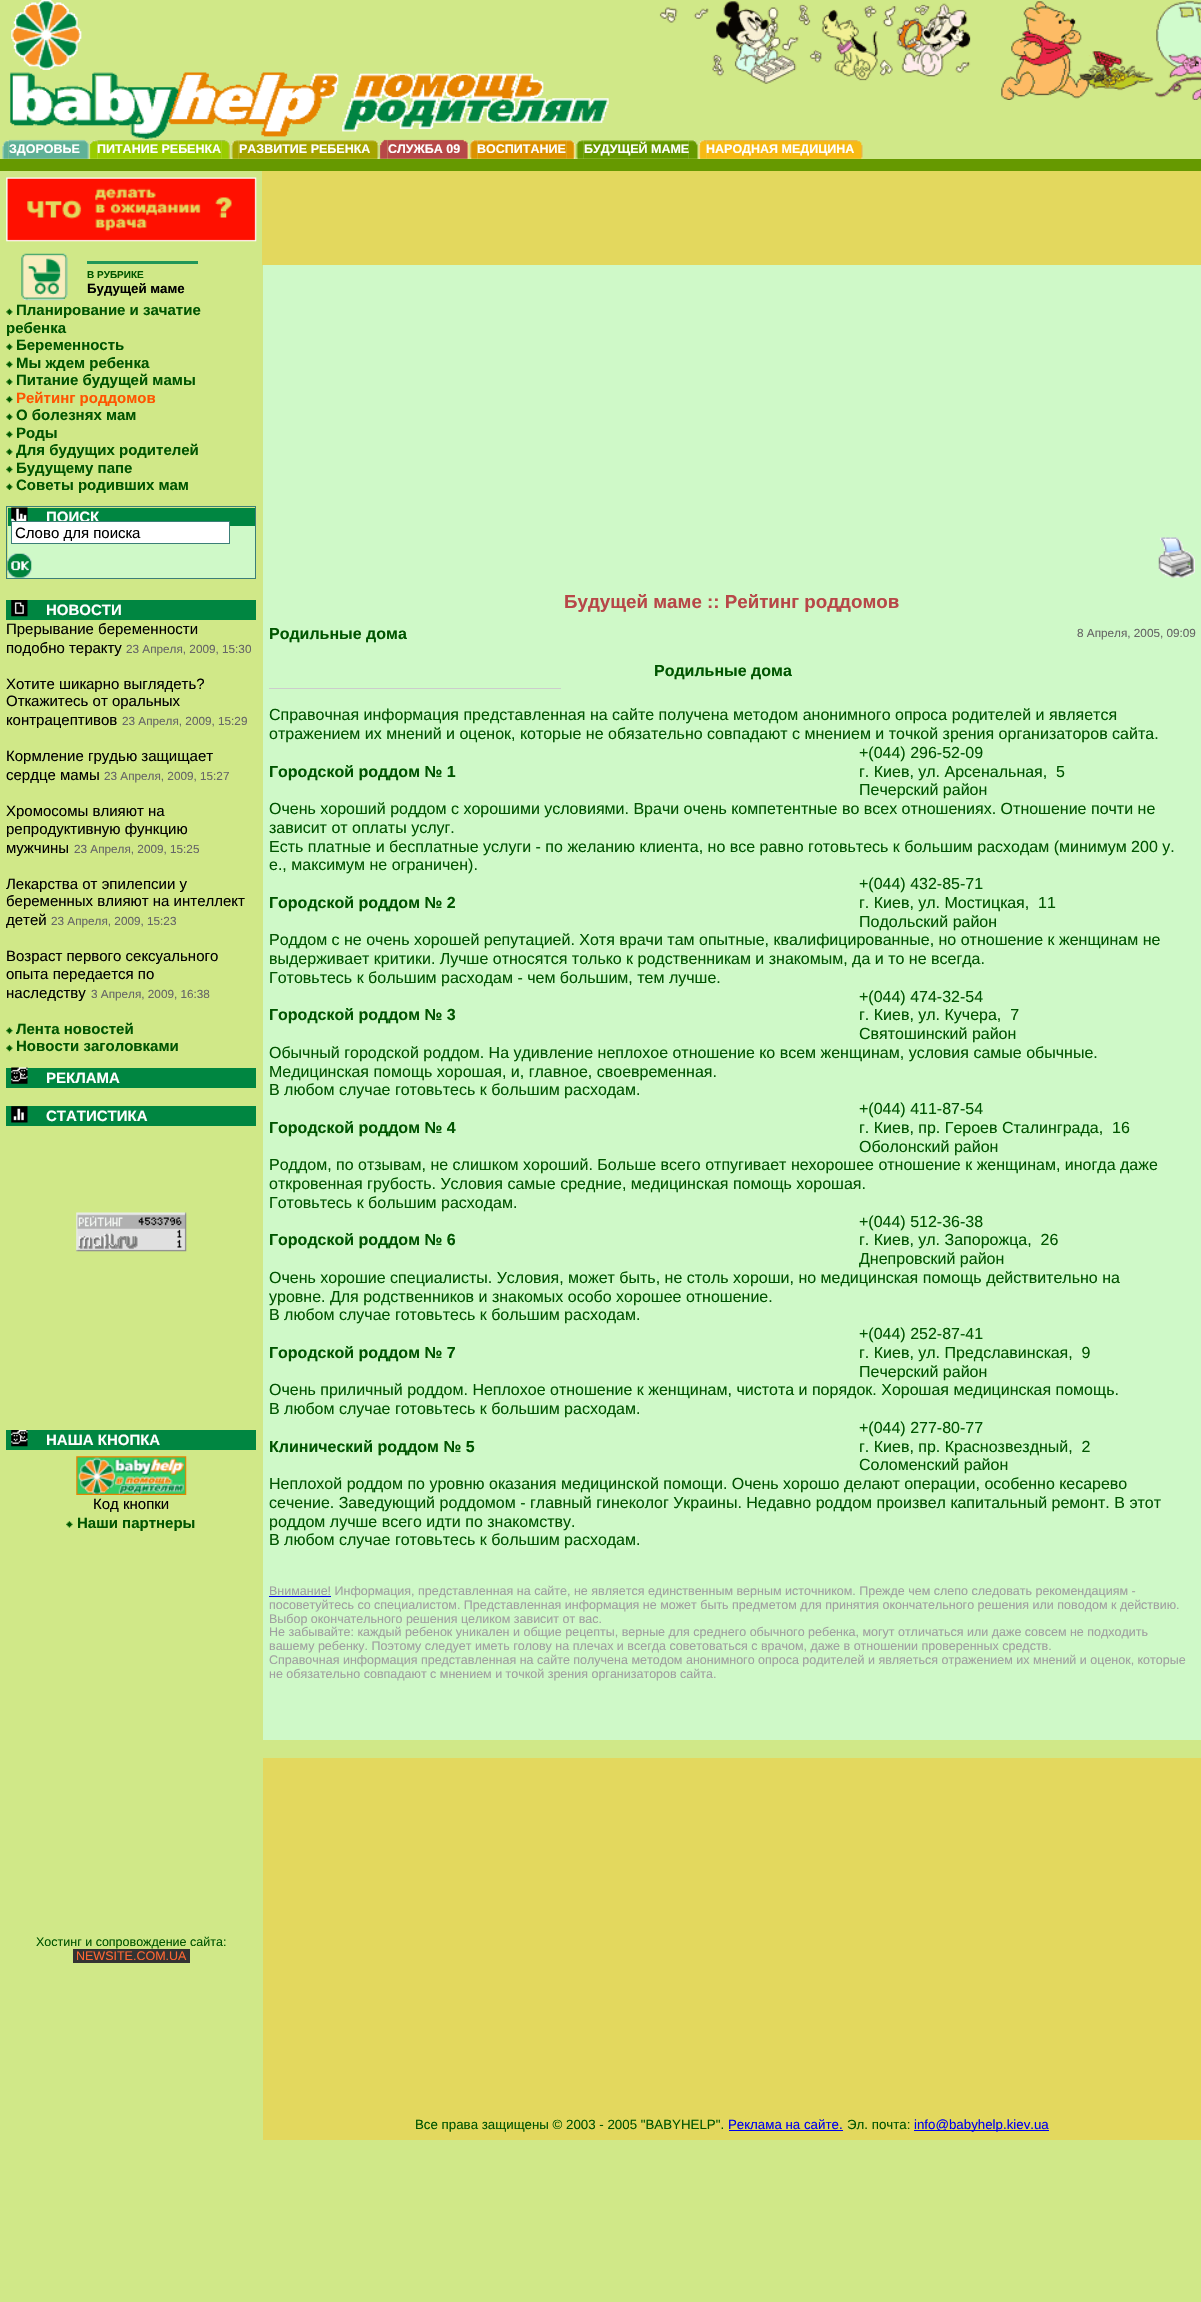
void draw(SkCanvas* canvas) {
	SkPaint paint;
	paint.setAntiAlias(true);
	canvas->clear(0xffd0e888);
	canvas->drawImageRect(SkImages::DeferredFromEncodedData(SkData::MakeFromFileName("img1.png")), SkRect::MakeXYWH(659, 1, 542, 99), SkSamplingOptions());
	canvas->drawImageRect(SkImages::DeferredFromEncodedData(SkData::MakeFromFileName("img2.png")), SkRect::MakeXYWH(11, 0, 71, 70), SkSamplingOptions());
	canvas->drawImageRect(SkImages::DeferredFromEncodedData(SkData::MakeFromFileName("img3.png")), SkRect::MakeXYWH(10, 72, 599, 67), SkSamplingOptions());
	canvas->drawImageRect(SkImages::DeferredFromEncodedData(SkData::MakeFromFileName("img4.png")), SkRect::MakeXYWH(2, 140, 7, 19), SkSamplingOptions());
	canvas->drawImageRect(SkImages::DeferredFromEncodedData(SkData::MakeFromFileName("img5.png")), SkRect::MakeXYWH(8, 139, 72, 20), SkSamplingOptions());
	SkFont f1(fontMgr->matchFamilyStyle("Liberation Sans", SkFontStyle::Bold()), 12.5);
	f1.setSubpixel(true);
	paint.setColor(0xffffffff);
	canvas->drawString("ЗДОРОВЬЕ", 9, 153, f1, paint);
	canvas->drawImageRect(SkImages::DeferredFromEncodedData(SkData::MakeFromFileName("img6.png")), SkRect::MakeXYWH(80, 139, 9, 20), SkSamplingOptions());
	canvas->drawImageRect(SkImages::DeferredFromEncodedData(SkData::MakeFromFileName("img7.png")), SkRect::MakeXYWH(89, 140, 9, 19), SkSamplingOptions());
	canvas->drawImageRect(SkImages::DeferredFromEncodedData(SkData::MakeFromFileName("img8.png")), SkRect::MakeXYWH(97, 140, 125, 19), SkSamplingOptions());
	canvas->drawString("ПИТАНИЕ РЕБЕНКА", 97, 153, f1, paint);
	canvas->drawImageRect(SkImages::DeferredFromEncodedData(SkData::MakeFromFileName("img9.png")), SkRect::MakeXYWH(221, 140, 9, 19), SkSamplingOptions());
	canvas->drawImageRect(SkImages::DeferredFromEncodedData(SkData::MakeFromFileName("img10.png")), SkRect::MakeXYWH(231, 140, 8, 19), SkSamplingOptions());
	canvas->drawImageRect(SkImages::DeferredFromEncodedData(SkData::MakeFromFileName("img11.png")), SkRect::MakeXYWH(238, 140, 132, 19), SkSamplingOptions());
	canvas->drawString("РАЗВИТИЕ РЕБЕНКА", 239, 153, f1, paint);
	canvas->drawImageRect(SkImages::DeferredFromEncodedData(SkData::MakeFromFileName("img12.png")), SkRect::MakeXYWH(370, 140, 9, 19), SkSamplingOptions());
	canvas->drawImageRect(SkImages::DeferredFromEncodedData(SkData::MakeFromFileName("img13.png")), SkRect::MakeXYWH(379, 139, 9, 20), SkSamplingOptions());
	canvas->drawImageRect(SkImages::DeferredFromEncodedData(SkData::MakeFromFileName("img14.png")), SkRect::MakeXYWH(387, 139, 73, 20), SkSamplingOptions());
	canvas->drawString("СЛУЖБА 09", 388, 153, f1, paint);
	canvas->drawImageRect(SkImages::DeferredFromEncodedData(SkData::MakeFromFileName("img15.png")), SkRect::MakeXYWH(460, 139, 9, 20), SkSamplingOptions());
	canvas->drawImageRect(SkImages::DeferredFromEncodedData(SkData::MakeFromFileName("img16.png")), SkRect::MakeXYWH(470, 140, 8, 19), SkSamplingOptions());
	canvas->drawImageRect(SkImages::DeferredFromEncodedData(SkData::MakeFromFileName("img17.png")), SkRect::MakeXYWH(477, 140, 90, 19), SkSamplingOptions());
	canvas->drawString("ВОСПИТАНИЕ", 477, 153, f1, paint);
	canvas->drawImageRect(SkImages::DeferredFromEncodedData(SkData::MakeFromFileName("img18.png")), SkRect::MakeXYWH(566, 140, 9, 19), SkSamplingOptions());
	canvas->drawImageRect(SkImages::DeferredFromEncodedData(SkData::MakeFromFileName("img19.png")), SkRect::MakeXYWH(576, 140, 8, 19), SkSamplingOptions());
	canvas->drawImageRect(SkImages::DeferredFromEncodedData(SkData::MakeFromFileName("img20.png")), SkRect::MakeXYWH(583, 140, 106, 19), SkSamplingOptions());
	canvas->drawImageRect(SkImages::DeferredFromEncodedData(SkData::MakeFromFileName("img21.png")), SkRect::MakeXYWH(688, 140, 10, 19), SkSamplingOptions());
	canvas->drawString("БУДУЩЕЙ МАМЕ", 584, 153, f1, paint);
	canvas->drawImageRect(SkImages::DeferredFromEncodedData(SkData::MakeFromFileName("img22.png")), SkRect::MakeXYWH(698, 140, 9, 19), SkSamplingOptions());
	canvas->drawImageRect(SkImages::DeferredFromEncodedData(SkData::MakeFromFileName("img23.png")), SkRect::MakeXYWH(706, 140, 149, 19), SkSamplingOptions());
	canvas->drawString("НАРОДНАЯ МЕДИЦИНА", 706, 153, f1, paint);
	canvas->drawImageRect(SkImages::DeferredFromEncodedData(SkData::MakeFromFileName("img24.png")), SkRect::MakeXYWH(855, 140, 8, 19), SkSamplingOptions());
	paint.setColor(0xff669900);
	canvas->drawRect(SkRect::MakeXYWH(0, 159, 1201, 12), paint);
	canvas->drawImageRect(SkImages::DeferredFromEncodedData(SkData::MakeFromFileName("img25.png")), SkRect::MakeXYWH(6, 177, 251, 65), SkSamplingOptions());
	canvas->drawImageRect(SkImages::DeferredFromEncodedData(SkData::MakeFromFileName("img26.png")), SkRect::MakeXYWH(21, 253, 47, 48), SkSamplingOptions());
	paint.setColor(0xff209758);
	canvas->drawRect(SkRect::MakeXYWH(87, 261, 111, 3), paint);
	SkFont f2(fontMgr->matchFamilyStyle("Liberation Sans", SkFontStyle::Bold()), 10);
	f2.setSubpixel(true);
	paint.setColor(0xff005500);
	canvas->drawString("В РУБРИКЕ", 87, 278, f2, paint);
	SkFont f3(fontMgr->matchFamilyStyle("Liberation Sans", SkFontStyle::Bold()), 13.3);
	f3.setSubpixel(true);
	paint.setColor(0xff000000);
	canvas->drawString("Будущей маме", 87, 293, f3, paint);
	canvas->drawImageRect(SkImages::DeferredFromEncodedData(SkData::MakeFromFileName("img27.png")), SkRect::MakeXYWH(6, 308, 7, 7), SkSamplingOptions());
	SkFont f4(fontMgr->matchFamilyStyle("Liberation Sans", SkFontStyle::Bold()), 15);
	f4.setSubpixel(true);
	paint.setColor(0xff005500);
	canvas->drawString("Планирование и зачатие", 16, 315, f4, paint);
	canvas->drawString("ребенка", 6, 333, f4, paint);
	canvas->drawImageRect(SkImages::DeferredFromEncodedData(SkData::MakeFromFileName("img27.png")), SkRect::MakeXYWH(6, 343, 7, 7), SkSamplingOptions());
	canvas->drawString("Беременность", 16, 350, f4, paint);
	canvas->drawImageRect(SkImages::DeferredFromEncodedData(SkData::MakeFromFileName("img28.png")), SkRect::MakeXYWH(6, 361, 7, 7), SkSamplingOptions());
	canvas->drawString("Мы ждем ребенка", 16, 368, f4, paint);
	canvas->drawImageRect(SkImages::DeferredFromEncodedData(SkData::MakeFromFileName("img27.png")), SkRect::MakeXYWH(6, 378, 7, 7), SkSamplingOptions());
	canvas->drawString("Питание будущей мамы", 16, 385, f4, paint);
	canvas->drawImageRect(SkImages::DeferredFromEncodedData(SkData::MakeFromFileName("img28.png")), SkRect::MakeXYWH(6, 396, 7, 7), SkSamplingOptions());
	paint.setColor(0xffff5500);
	canvas->drawString("Рейтинг роддомов", 16, 403, f4, paint);
	canvas->drawImageRect(SkImages::DeferredFromEncodedData(SkData::MakeFromFileName("img27.png")), SkRect::MakeXYWH(6, 413, 7, 7), SkSamplingOptions());
	paint.setColor(0xff005500);
	canvas->drawString("О болезнях мам", 16, 420, f4, paint);
	canvas->drawImageRect(SkImages::DeferredFromEncodedData(SkData::MakeFromFileName("img28.png")), SkRect::MakeXYWH(6, 431, 7, 7), SkSamplingOptions());
	canvas->drawString("Роды", 16, 438, f4, paint);
	canvas->drawImageRect(SkImages::DeferredFromEncodedData(SkData::MakeFromFileName("img27.png")), SkRect::MakeXYWH(6, 448, 7, 7), SkSamplingOptions());
	canvas->drawString("Для будущих родителей", 16, 455, f4, paint);
	canvas->drawImageRect(SkImages::DeferredFromEncodedData(SkData::MakeFromFileName("img28.png")), SkRect::MakeXYWH(6, 466, 7, 7), SkSamplingOptions());
	canvas->drawString("Будущему папе", 16, 473, f4, paint);
	canvas->drawImageRect(SkImages::DeferredFromEncodedData(SkData::MakeFromFileName("img27.png")), SkRect::MakeXYWH(6, 483, 7, 7), SkSamplingOptions());
	canvas->drawString("Советы родивших мам", 16, 490, f4, paint);
	paint.setStroke(true);
	paint.setStrokeWidth(1);
	paint.setColor(0xff3c7f78);
	canvas->drawRect(SkRect::MakeXYWH(6.5, 506.5, 249, 72), paint);
	paint.setStroke(false);
	paint.setColor(0xff008641);
	canvas->drawRect(SkRect::MakeXYWH(8, 508, 247, 18), paint);
	canvas->drawImageRect(SkImages::DeferredFromEncodedData(SkData::MakeFromFileName("img29.png")), SkRect::MakeXYWH(11, 507, 17, 14), SkSamplingOptions());
	paint.setColor(0xffffffff);
	canvas->drawString("ПОИСК", 46, 522, f4, paint);
	paint.setColor(0xffcff9c8);
	canvas->drawRect(SkRect::MakeXYWH(8, 526, 247, 52), paint);
	paint.setColor(0xffffffff);
	canvas->drawRect(SkRect::MakeXYWH(11.5, 521.5, 218, 22), paint);
	paint.setStroke(true);
	paint.setColor(0xff3c7f78);
	canvas->drawRect(SkRect::MakeXYWH(11.5, 521.5, 218, 22), paint);
	SkFont f5(fontMgr->matchFamilyStyle("Liberation Sans", SkFontStyle::Normal()), 15);
	f5.setSubpixel(true);
	paint.setStroke(false);
	paint.setColor(0xff000000);
	canvas->drawString("Слово для поиска", 15, 538, f5, paint);
	canvas->drawImageRect(SkImages::DeferredFromEncodedData(SkData::MakeFromFileName("img30.png")), SkRect::MakeXYWH(7, 553, 25, 25), SkSamplingOptions());
	paint.setColor(0xff008641);
	canvas->drawRect(SkRect::MakeXYWH(6, 600, 250, 20), paint);
	canvas->drawImageRect(SkImages::DeferredFromEncodedData(SkData::MakeFromFileName("img31.png")), SkRect::MakeXYWH(11, 600, 17, 17), SkSamplingOptions());
	paint.setColor(0xffffffff);
	canvas->drawString("НОВОСТИ", 46, 615, f4, paint);
	paint.setColor(0xff000000);
	canvas->drawString("Прерывание беременности", 6, 634, f5, paint);
	canvas->drawString("подобно теракту", 6, 653, f5, paint);
	SkFont f6(fontMgr->matchFamilyStyle("Liberation Sans", SkFontStyle::Normal()), 11.75);
	f6.setSubpixel(true);
	paint.setColor(0xff666666);
	canvas->drawString("23 Апреля, 2009, 15:30", 126, 653, f6, paint);
	paint.setColor(0xff000000);
	canvas->drawString("Хотите шикарно выглядеть?", 6, 689, f5, paint);
	canvas->drawString("Откажитесь от оральных", 6, 706, f5, paint);
	canvas->drawString("контрацептивов", 6, 725, f5, paint);
	paint.setColor(0xff666666);
	canvas->drawString("23 Апреля, 2009, 15:29", 122, 725, f6, paint);
	paint.setColor(0xff000000);
	canvas->drawString("Кормление грудью защищает", 6, 761, f5, paint);
	canvas->drawString("сердце мамы", 6, 780, f5, paint);
	paint.setColor(0xff666666);
	canvas->drawString("23 Апреля, 2009, 15:27", 104, 780, f6, paint);
	paint.setColor(0xff000000);
	canvas->drawString("Хромосомы влияют на", 6, 816, f5, paint);
	canvas->drawString("репродуктивную функцию", 6, 834, f5, paint);
	canvas->drawString("мужчины", 6, 853, f5, paint);
	paint.setColor(0xff666666);
	canvas->drawString("23 Апреля, 2009, 15:25", 74, 853, f6, paint);
	paint.setColor(0xff000000);
	canvas->drawString("Лекарства от эпилепсии у", 6, 889, f5, paint);
	canvas->drawString("беременных влияют на интеллект", 6, 906, f5, paint);
	canvas->drawString("детей", 6, 925, f5, paint);
	paint.setColor(0xff666666);
	canvas->drawString("23 Апреля, 2009, 15:23", 51, 925, f6, paint);
	paint.setColor(0xff000000);
	canvas->drawString("Возраст первого сексуального", 6, 961, f5, paint);
	canvas->drawString("опыта передается по", 6, 979, f5, paint);
	canvas->drawString("наследству", 6, 998, f5, paint);
	paint.setColor(0xff666666);
	canvas->drawString("3 Апреля, 2009, 16:38", 91, 998, f6, paint);
	canvas->drawImageRect(SkImages::DeferredFromEncodedData(SkData::MakeFromFileName("img32.png")), SkRect::MakeXYWH(6, 1027, 7, 7), SkSamplingOptions());
	paint.setColor(0xff005500);
	canvas->drawString("Лента новостей", 16, 1034, f4, paint);
	canvas->drawImageRect(SkImages::DeferredFromEncodedData(SkData::MakeFromFileName("img33.png")), SkRect::MakeXYWH(6, 1044, 7, 8), SkSamplingOptions());
	canvas->drawString("Новости заголовками", 16, 1051, f4, paint);
	paint.setColor(0xff008641);
	canvas->drawRect(SkRect::MakeXYWH(6, 1068, 250, 20), paint);
	canvas->drawImageRect(SkImages::DeferredFromEncodedData(SkData::MakeFromFileName("img34.png")), SkRect::MakeXYWH(11, 1067, 17, 17), SkSamplingOptions());
	paint.setColor(0xffffffff);
	canvas->drawString("РЕКЛАМА", 46, 1083, f4, paint);
	paint.setColor(0xff008641);
	canvas->drawRect(SkRect::MakeXYWH(6, 1106, 250, 20), paint);
	canvas->drawImageRect(SkImages::DeferredFromEncodedData(SkData::MakeFromFileName("img35.png")), SkRect::MakeXYWH(11, 1106, 17, 17), SkSamplingOptions());
	paint.setColor(0xffffffff);
	canvas->drawString("СТАТИСТИКА", 46, 1121, f4, paint);
	canvas->drawImageRect(SkImages::DeferredFromEncodedData(SkData::MakeFromFileName("img36.png")), SkRect::MakeXYWH(76, 1212, 111, 40), SkSamplingOptions());
	paint.setColor(0xff008641);
	canvas->drawRect(SkRect::MakeXYWH(6, 1430, 250, 20), paint);
	canvas->drawImageRect(SkImages::DeferredFromEncodedData(SkData::MakeFromFileName("img37.png")), SkRect::MakeXYWH(11, 1430, 17, 17), SkSamplingOptions());
	paint.setColor(0xffffffff);
	canvas->drawString("НАША КНОПКА", 46, 1445, f4, paint);
	canvas->drawImageRect(SkImages::DeferredFromEncodedData(SkData::MakeFromFileName("img38.png")), SkRect::MakeXYWH(76, 1456, 111, 39), SkSamplingOptions());
	paint.setColor(0xff000000);
	canvas->drawString("Код кнопки", 93, 1509, f5, paint);
	canvas->drawImageRect(SkImages::DeferredFromEncodedData(SkData::MakeFromFileName("img28.png")), SkRect::MakeXYWH(66, 1521, 7, 7), SkSamplingOptions());
	paint.setColor(0xff005500);
	canvas->drawString("Наши партнеры", 77, 1528, f4, paint);
	paint.setColor(0xffcff9c8);
	canvas->drawRect(SkRect::MakeXYWH(263, 265, 938, 1475), paint);
	paint.setColor(0xffe3d85e);
	canvas->drawRect(SkRect::MakeXYWH(262, 171, 939, 94), paint);
	canvas->drawImageRect(SkImages::DeferredFromEncodedData(SkData::MakeFromFileName("img39.png")), SkRect::MakeXYWH(1158, 537, 37, 41), SkSamplingOptions());
	SkFont f7(fontMgr->matchFamilyStyle("Liberation Sans", SkFontStyle::Bold()), 18.75);
	f7.setSubpixel(true);
	paint.setColor(0xffb74848);
	canvas->drawString("Будущей маме :: Рейтинг роддомов", 564, 608, f7, paint);
	SkFont f8(fontMgr->matchFamilyStyle("Liberation Sans", SkFontStyle::Bold()), 16);
	f8.setSubpixel(true);
	paint.setColor(0xff005500);
	canvas->drawString("Родильные дома", 269, 639, f8, paint);
	paint.setColor(0xff666666);
	canvas->drawString("8 Апреля, 2005, 09:09", 1077, 637, f6, paint);
	paint.setColor(0xff005500);
	canvas->drawString("Родильные дома", 654, 676, f8, paint);
	paint.setColor(0xffcccccc);
	canvas->drawRect(SkRect::MakeXYWH(269, 688, 292, 1), paint);
	SkFont f9(fontMgr->matchFamilyStyle("Liberation Sans", SkFontStyle::Normal()), 16);
	f9.setSubpixel(true);
	paint.setColor(0xff005500);
	canvas->drawString("Справочная информация представленная на сайте получена методом анонимного опроса родителей и является", 269, 720, f9, paint);
	canvas->drawString("отражением их мнений и оценок, которые не обязательно совпадают с мнением и точкой зрения организаторов сайта.", 269, 739, f9, paint);
	canvas->drawString("Городской роддом № 1", 269, 777, f8, paint);
	canvas->drawString("+(044) 296-52-09", 859, 758, f9, paint);
	canvas->drawString("г. Киев, ул. Арсенальная,  5", 859, 777, f9, paint);
	canvas->drawString("Печерский район", 859, 795, f9, paint);
	canvas->drawString("Очень хороший роддом с хорошими условиями. Врачи очень компетентные во всех отношениях. Отношение почти не", 269, 814, f9, paint);
	canvas->drawString("зависит от оплаты услуг.", 269, 833, f9, paint);
	canvas->drawString("Есть платные и бесплатные услуги - по желанию клиента, но все равно готовьтесь к большим расходам (минимум 200 у.", 269, 852, f9, paint);
	canvas->drawString("е., максимум не ограничен).", 269, 870, f9, paint);
	canvas->drawString("Городской роддом № 2", 269, 908, f8, paint);
	canvas->drawString("+(044) 432-85-71", 859, 889, f9, paint);
	canvas->drawString("г. Киев, ул. Мостицкая,  11", 859, 908, f9, paint);
	canvas->drawString("Подольский район", 859, 927, f9, paint);
	canvas->drawString("Роддом с не очень хорошей репутацией. Хотя врачи там опытные, квалифицированные, но отношение к женщинам не", 269, 945, f9, paint);
	canvas->drawString("выдерживает критики. Лучше относятся только к родственникам и знакомым, да и то не всегда.", 269, 964, f9, paint);
	canvas->drawString("Готовьтесь к большим расходам - чем большим, тем лучше.", 269, 983, f9, paint);
	canvas->drawString("Городской роддом № 3", 269, 1020, f8, paint);
	canvas->drawString("+(044) 474-32-54", 859, 1002, f9, paint);
	canvas->drawString("г. Киев, ул. Кучера,  7", 859, 1020, f9, paint);
	canvas->drawString("Святошинский район", 859, 1039, f9, paint);
	canvas->drawString("Обычный городской роддом. На удивление неплохое отношение ко всем женщинам, условия самые обычные.", 269, 1058, f9, paint);
	canvas->drawString("Медицинская помощь хорошая, и, главное, своевременная.", 269, 1077, f9, paint);
	canvas->drawString("В любом случае готовьтесь к большим расходам.", 269, 1095, f9, paint);
	canvas->drawString("Городской роддом № 4", 269, 1133, f8, paint);
	canvas->drawString("+(044) 411-87-54", 859, 1114, f9, paint);
	canvas->drawString("г. Киев, пр. Героев Сталинграда,  16", 859, 1133, f9, paint);
	canvas->drawString("Оболонский район", 859, 1152, f9, paint);
	canvas->drawString("Роддом, по отзывам, не слишком хороший. Больше всего отпугивает нехорошее отношение к женщинам, иногда даже", 269, 1170, f9, paint);
	canvas->drawString("откровенная грубость. Условия самые средние, медицинская помощь хорошая.", 269, 1189, f9, paint);
	canvas->drawString("Готовьтесь к большим расходам.", 269, 1208, f9, paint);
	canvas->drawString("Городской роддом № 6", 269, 1245, f8, paint);
	canvas->drawString("+(044) 512-36-38", 859, 1227, f9, paint);
	canvas->drawString("г. Киев, ул. Запорожца,  26", 859, 1245, f9, paint);
	canvas->drawString("Днепровский район", 859, 1264, f9, paint);
	canvas->drawString("Очень хорошие специалисты. Условия, может быть, не столь хороши, но медицинская помощь действительно на", 269, 1283, f9, paint);
	canvas->drawString("уровне. Для родственников и знакомых особо хорошее отношение.", 269, 1302, f9, paint);
	canvas->drawString("В любом случае готовьтесь к большим расходам.", 269, 1320, f9, paint);
	canvas->drawString("Городской роддом № 7", 269, 1358, f8, paint);
	canvas->drawString("+(044) 252-87-41", 859, 1339, f9, paint);
	canvas->drawString("г. Киев, ул. Предславинская,  9", 859, 1358, f9, paint);
	canvas->drawString("Печерский район", 859, 1377, f9, paint);
	canvas->drawString("Очень приличный роддом. Неплохое отношение к женщинам, чистота и порядок. Хорошая медицинская помощь.", 269, 1395, f9, paint);
	canvas->drawString("В любом случае готовьтесь к большим расходам.", 269, 1414, f9, paint);
	canvas->drawString("Клинический роддом № 5", 269, 1452, f8, paint);
	canvas->drawString("+(044) 277-80-77", 859, 1433, f9, paint);
	canvas->drawString("г. Киев, пр. Краснозвездный,  2", 859, 1452, f9, paint);
	canvas->drawString("Соломенский район", 859, 1470, f9, paint);
	canvas->drawString("Неплохой роддом по уровню оказания медицинской помощи. Очень хорошо делают операции, особенно кесарево", 269, 1489, f9, paint);
	canvas->drawString("сечение. Заведующий роддомом - главный гинеколог Украины. Недавно роддом произвел капитальный ремонт. В этот", 269, 1508, f9, paint);
	canvas->drawString("роддом лучше всего идти по знакомству.", 269, 1527, f9, paint);
	canvas->drawString("В любом случае готовьтесь к большим расходам.", 269, 1545, f9, paint);
	paint.setColor(0xff0000ee);
	canvas->drawRect(SkRect::MakeXYWH(269, 1596, 62, 1), paint);
	SkFont f10(fontMgr->matchFamilyStyle("Liberation Sans", SkFontStyle::Normal()), 12.5);
	f10.setSubpixel(true);
	paint.setColor(0xffa0a0a0);
	canvas->drawString("Внимание! Информация, представленная на сайте, не является единственным верным источником. Прежде чем слепо следовать рекомендациям -", 269, 1595, f10, paint);
	canvas->drawString("посоветуйтесь со специалистом. Представленная информация не может быть предметом для принятия окончательного решения или поводом к действию.", 269, 1609, f10, paint);
	canvas->drawString("Выбор окончательного решения целиком зависит от вас.", 269, 1623, f10, paint);
	canvas->drawString("Не забывайте: каждый ребенок уникален и общие рецепты, верные для среднего обычного ребенка, могут отличаться или даже совсем не подходить", 269, 1636, f10, paint);
	canvas->drawString("вашему ребенку. Поэтому следует иметь голову на плечах и всегда советоваться с врачом, даже в отношении проверенных средств.", 269, 1650, f10, paint);
	canvas->drawString("Справочная информация представленная на сайте получена методом анонимного опроса родителей и являеться отражением их мнений и оценок, которые", 269, 1664, f10, paint);
	canvas->drawString("не обязательно совпадают с мнением и точкой зрения организаторов сайта.", 269, 1678, f10, paint);
	paint.setColor(0xff005500);
	canvas->drawString("Хостинг и сопровождение сайта:", 36, 1946, f10, paint);
	paint.setColor(0xff333333);
	canvas->drawRect(SkRect::MakeXYWH(73, 1949, 117, 14), paint);
	paint.setColor(0xffff6633);
	canvas->drawString("NEWSITE.COM.UA", 76, 1960, f10, paint);
	paint.setColor(0xffe3d85e);
	canvas->drawRect(SkRect::MakeXYWH(263, 1758, 938, 382), paint);
	SkFont f11(fontMgr->matchFamilyStyle("Liberation Sans", SkFontStyle::Normal()), 13.3);
	f11.setSubpixel(true);
	paint.setColor(0xff005500);
	canvas->drawString("Все права защищены © 2003 - 2005 \"BABYHELP\".", 415, 2129, f11, paint);
	paint.setColor(0xff0000ee);
	canvas->drawString("Реклама на сайте.", 728, 2129, f11, paint);
	canvas->drawRect(SkRect::MakeXYWH(729, 2130, 114, 1), paint);
	paint.setColor(0xff005500);
	canvas->drawString("Эл. почта:", 847, 2129, f11, paint);
	paint.setColor(0xff0000ee);
	canvas->drawRect(SkRect::MakeXYWH(914, 2130, 135, 1), paint);
	canvas->drawString("info@babyhelp.kiev.ua", 914, 2129, f11, paint);
}
